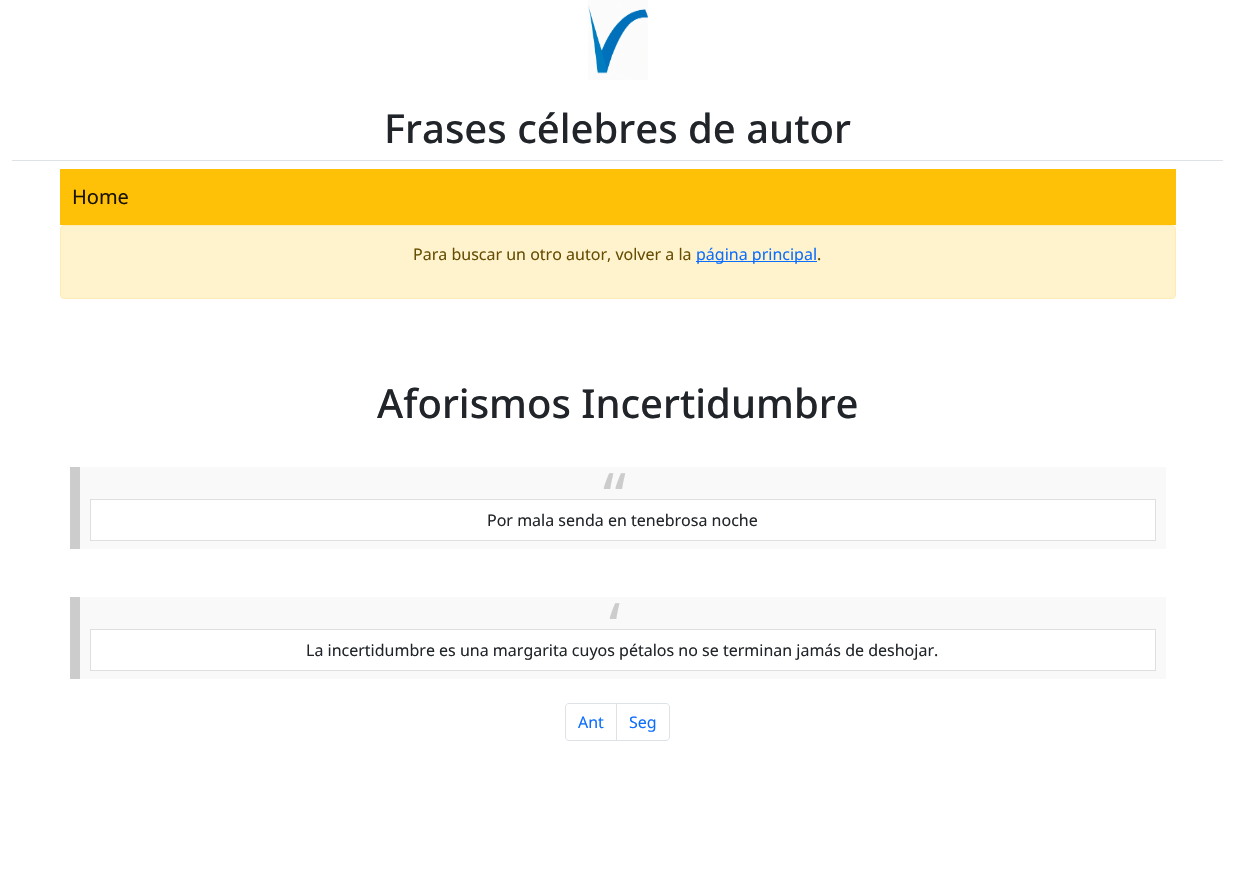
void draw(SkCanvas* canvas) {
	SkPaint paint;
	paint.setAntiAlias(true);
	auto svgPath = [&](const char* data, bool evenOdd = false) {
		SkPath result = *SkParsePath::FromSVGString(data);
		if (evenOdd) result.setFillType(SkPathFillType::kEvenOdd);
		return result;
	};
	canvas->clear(0xffffffff);
	canvas->drawImageRect(SkImages::DeferredFromEncodedData(SkData::MakeFromFileName("img1.png")), SkRect::MakeXYWH(588, 0, 60, 80), SkSamplingOptions());
	paint.setColor(0xffdee2e6);
	canvas->drawRect(SkRect::MakeXYWH(12, 160, 1211, 1), paint);
	SkFont f1(fontMgr->matchFamilyStyle("Noto Sans", SkFontStyle(500, SkFontStyle::kNormal_Width, SkFontStyle::kUpright_Slant)), 40);
	f1.setSubpixel(true);
	paint.setColor(0xff212529);
	canvas->drawString("Frases célebres de autor", 384, 143, f1, paint);
	paint.setColor(0xffffc107);
	canvas->drawRect(SkRect::MakeXYWH(60, 169, 1116, 56), paint);
	SkFont f2(fontMgr->matchFamilyStyle("Noto Sans", SkFontStyle::Normal()), 20);
	f2.setSubpixel(true);
	paint.setColor(0xff1a1301);
	canvas->drawString("Home", 72, 204, f2, paint);
	paint.setColor(0xfffff3cd);
	canvas->drawRoundRect(SkRect::MakeXYWH(60.5, 225.5, 1115, 73), 3.5, 3.5, paint);
	paint.setStroke(true);
	paint.setStrokeWidth(1);
	paint.setColor(0xffffecb5);
	canvas->drawRoundRect(SkRect::MakeXYWH(60.5, 225.5, 1115, 73), 3.5, 3.5, paint);
	SkFont f3(fontMgr->matchFamilyStyle("Noto Sans", SkFontStyle::Normal()), 16);
	f3.setSubpixel(true);
	paint.setStroke(false);
	paint.setColor(0xff664d03);
	canvas->drawString("Para buscar un otro autor, volver a la", 413, 260, f3, paint);
	paint.setColor(0xff0d6efd);
	canvas->drawRect(SkRect::MakeXYWH(696, 261, 121, 1), paint);
	canvas->drawString("página principal", 696, 260, f3, paint);
	paint.setColor(0xff664d03);
	canvas->drawString(".", 817, 260, f3, paint);
	paint.setColor(0xff212529);
	canvas->drawString("Aforismos Incertidumbre", 377, 418, f1, paint);
	paint.setColor(0xfff9f9f9);
	canvas->drawRect(SkRect::MakeXYWH(80, 467, 1086, 82), paint);
	paint.setColor(0xffcccccc);
	canvas->drawRect(SkRect::MakeXYWH(70, 467, 10, 82), paint);
	SkFont f4(fontMgr->matchFamilyStyle("Noto Sans", SkFontStyle::Normal()), 64);
	f4.setSubpixel(true);
	canvas->drawString("“", 603, 519, f4, paint);
	paint.setColor(0xffffffff);
	canvas->drawRect(SkRect::MakeXYWH(90.5, 499.5, 1065, 41), paint);
	paint.setStroke(true);
	paint.setColor(0xffdfdfdf);
	canvas->drawRect(SkRect::MakeXYWH(90.5, 499.5, 1065, 41), paint);
	paint.setStroke(false);
	paint.setColor(0xff212529);
	canvas->drawString("Por mala senda en tenebrosa noche", 487, 526, f3, paint);
	paint.setColor(0xfff9f9f9);
	canvas->drawRect(SkRect::MakeXYWH(80, 597, 1086, 82), paint);
	paint.setColor(0xffcccccc);
	canvas->drawRect(SkRect::MakeXYWH(70, 597, 10, 82), paint);
	canvas->drawString("‘", 609, 649, f4, paint);
	paint.setColor(0xffffffff);
	canvas->drawRect(SkRect::MakeXYWH(90.5, 629.5, 1065, 41), paint);
	paint.setStroke(true);
	paint.setColor(0xffdfdfdf);
	canvas->drawRect(SkRect::MakeXYWH(90.5, 629.5, 1065, 41), paint);
	paint.setStroke(false);
	paint.setColor(0xff212529);
	canvas->drawString("La incertidumbre es una margarita cuyos pétalos no se terminan jamás de deshojar.", 306, 656, f3, paint);
	paint.setStroke(true);
	paint.setColor(0xffdee2e6);
	canvas->drawPath(svgPath("M569 703.5H616.5V740.5H569C567 740.5 565.5 739 565.5 737V707C565.5 705 567 703.5 569 703.5Z"), paint);
	paint.setStroke(false);
	paint.setColor(0xff0d6efd);
	canvas->drawString("Ant", 578, 728, f3, paint);
	paint.setColor(0xffffffff);
	canvas->drawPath(svgPath("M616.5 703.5H666C668 703.5 669.5 705 669.5 707V737C669.5 739 668 740.5 666 740.5H616.5Z"), paint);
	paint.setStroke(true);
	paint.setColor(0xffdee2e6);
	canvas->drawPath(svgPath("M616.5 703.5H666C668 703.5 669.5 705 669.5 707V737C669.5 739 668 740.5 666 740.5H616.5Z"), paint);
	paint.setStroke(false);
	paint.setColor(0xff0d6efd);
	canvas->drawString("Seg", 629, 728, f3, paint);
}
